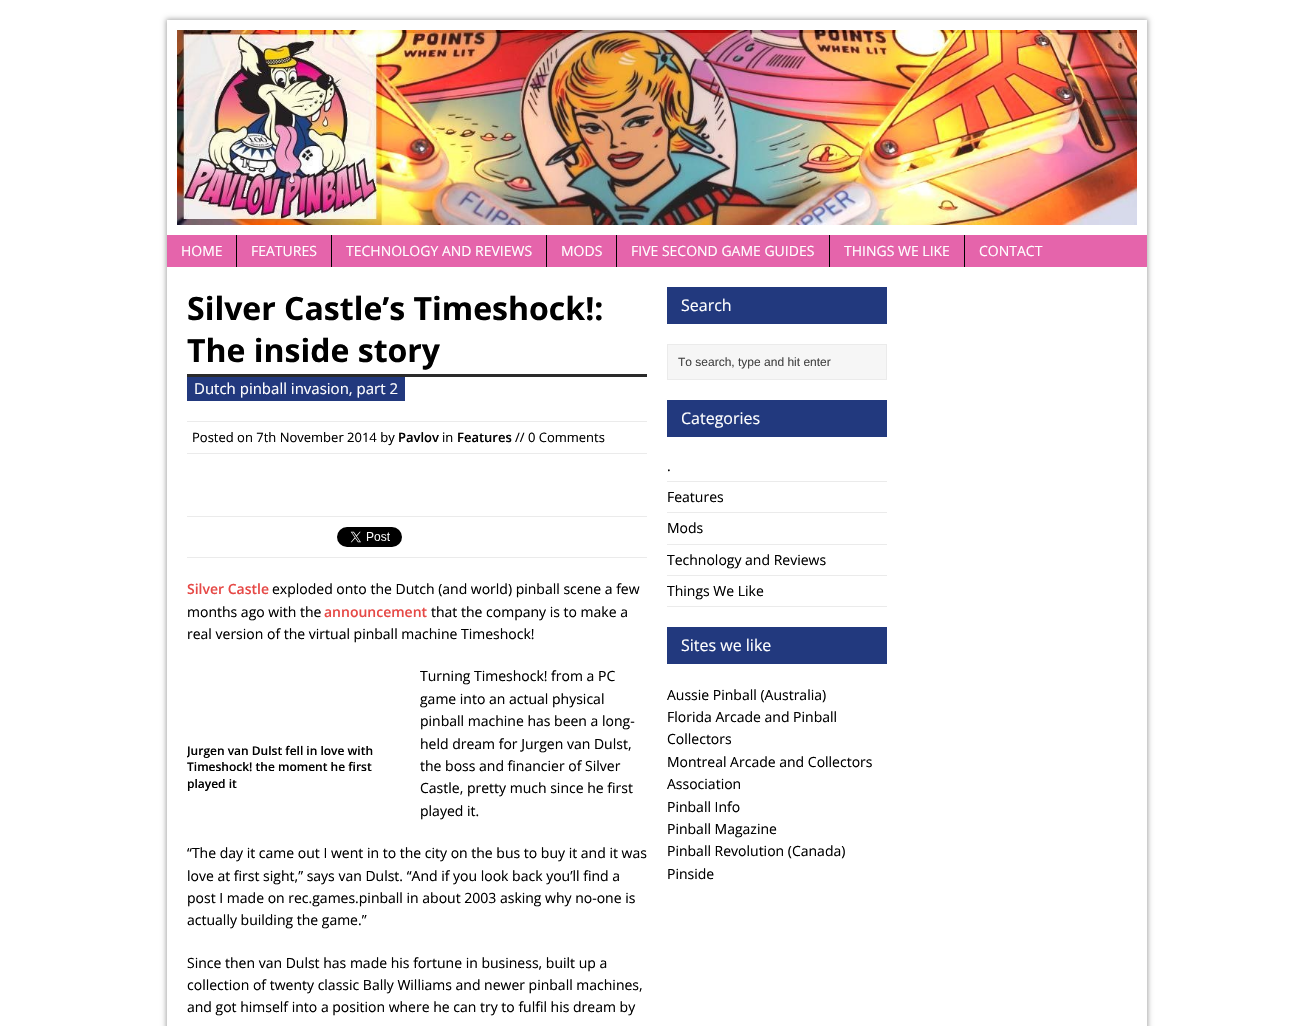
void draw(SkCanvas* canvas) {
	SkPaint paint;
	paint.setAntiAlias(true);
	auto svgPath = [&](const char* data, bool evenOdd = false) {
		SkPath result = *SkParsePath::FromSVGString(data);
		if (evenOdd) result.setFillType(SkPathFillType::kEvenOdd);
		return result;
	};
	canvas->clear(0xffffffff);
	canvas->save();
	canvas->clipPath(svgPath("M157 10H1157V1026H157ZM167 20H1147V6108H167Z", true), true);
	paint.setColor(0xffa8a8a8);
	paint.setMaskFilter(SkMaskFilter::MakeBlur(kNormal_SkBlurStyle, 2.5));
	canvas->drawRect(SkRect::MakeXYWH(166, 19, 982, 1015), paint);
	paint.setMaskFilter(nullptr);
	canvas->restore();
	canvas->drawImageRect(SkImages::DeferredFromEncodedData(SkData::MakeFromFileName("img1.png")), SkRect::MakeXYWH(177, 30, 960, 195), SkSamplingOptions());
	paint.setColor(0xffe564ab);
	canvas->drawRect(SkRect::MakeXYWH(167, 235, 980, 32), paint);
	SkFont f1(fontMgr->matchFamilyStyle("Open Sans", SkFontStyle::Normal()), 14);
	f1.setSubpixel(true);
	paint.setColor(0xffffffff);
	canvas->drawString("HOME", 181, 256, f1, paint);
	paint.setColor(0xff000000);
	canvas->drawRect(SkRect::MakeXYWH(236, 235, 1, 32), paint);
	paint.setColor(0xffffffff);
	canvas->drawString("FEATURES", 251, 256, f1, paint);
	paint.setColor(0xff000000);
	canvas->drawRect(SkRect::MakeXYWH(331, 235, 1, 32), paint);
	paint.setColor(0xffffffff);
	canvas->drawString("TECHNOLOGY AND REVIEWS", 346, 256, f1, paint);
	paint.setColor(0xff000000);
	canvas->drawRect(SkRect::MakeXYWH(546, 235, 1, 32), paint);
	paint.setColor(0xffffffff);
	canvas->drawString("MODS", 561, 256, f1, paint);
	paint.setColor(0xff000000);
	canvas->drawRect(SkRect::MakeXYWH(616, 235, 1, 32), paint);
	paint.setColor(0xffffffff);
	canvas->drawString("FIVE SECOND GAME GUIDES", 631, 256, f1, paint);
	paint.setColor(0xff000000);
	canvas->drawRect(SkRect::MakeXYWH(829, 235, 1, 32), paint);
	paint.setColor(0xffffffff);
	canvas->drawString("THINGS WE LIKE", 844, 256, f1, paint);
	paint.setColor(0xff000000);
	canvas->drawRect(SkRect::MakeXYWH(964, 235, 1, 32), paint);
	paint.setColor(0xffffffff);
	canvas->drawString("CONTACT", 979, 256, f1, paint);
	SkFont f2(fontMgr->matchFamilyStyle("Open Sans", SkFontStyle::Bold()), 32);
	f2.setSubpixel(true);
	paint.setColor(0xff000000);
	canvas->drawString("Silver Castle’s Timeshock!:", 187, 320, f2, paint);
	canvas->drawString("The inside story", 187, 362, f2, paint);
	paint.setColor(0xff2a2a2a);
	canvas->drawRect(SkRect::MakeXYWH(187, 374, 460, 3), paint);
	paint.setColor(0xff22397e);
	canvas->drawRect(SkRect::MakeXYWH(187, 377, 218, 24), paint);
	SkFont f3(fontMgr->matchFamilyStyle("Open Sans", SkFontStyle::Normal()), 15);
	f3.setSubpixel(true);
	paint.setColor(0xffffffff);
	canvas->drawString("Dutch pinball invasion, part 2", 194, 394, f3, paint);
	paint.setColor(0xffebebeb);
	canvas->drawRect(SkRect::MakeXYWH(187, 421, 460, 1), paint);
	canvas->drawRect(SkRect::MakeXYWH(187, 453, 460, 1), paint);
	SkFont f4(fontMgr->matchFamilyStyle("Open Sans", SkFontStyle::Normal()), 13);
	f4.setSubpixel(true);
	paint.setColor(0xff000000);
	canvas->drawString("Posted on 7th November 2014 by", 192, 442, f4, paint);
	SkFont f5(fontMgr->matchFamilyStyle("Open Sans", SkFontStyle(600, SkFontStyle::kNormal_Width, SkFontStyle::kUpright_Slant)), 13);
	f5.setSubpixel(true);
	canvas->drawString("Pavlov", 398, 442, f5, paint);
	canvas->drawString("in", 442, 442, f4, paint);
	canvas->drawString("Features", 457, 442, f5, paint);
	canvas->drawString("// 0 Comments", 515, 442, f4, paint);
	paint.setColor(0xffebebeb);
	canvas->drawRect(SkRect::MakeXYWH(187, 516, 460, 1), paint);
	canvas->drawRect(SkRect::MakeXYWH(187, 557, 460, 1), paint);
	canvas->drawImageRect(SkImages::DeferredFromEncodedData(SkData::MakeFromFileName("img2.png")), SkRect::MakeXYWH(337, 527, 65, 20), SkSamplingOptions());
	SkFont f6(fontMgr->matchFamilyStyle("Open Sans", SkFontStyle(600, SkFontStyle::kNormal_Width, SkFontStyle::kUpright_Slant)), 14);
	f6.setSubpixel(true);
	paint.setColor(0xffe64946);
	canvas->drawString("Silver Castle", 187, 594, f6, paint);
	paint.setColor(0xff000000);
	canvas->drawString("exploded onto the Dutch (and world) pinball scene a few", 272, 594, f1, paint);
	canvas->drawString("months ago with the", 187, 617, f1, paint);
	paint.setColor(0xffe64946);
	canvas->drawString("announcement", 324, 617, f6, paint);
	paint.setColor(0xff000000);
	canvas->drawString("that the company is to make a", 431, 617, f1, paint);
	canvas->drawString("real version of the virtual pinball machine Timeshock!", 187, 639, f1, paint);
	canvas->save();
	canvas->clipRect(SkRect::MakeXYWH(187, 287, 460, 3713));
	SkFont f7(fontMgr->matchFamilyStyle("Open Sans", SkFontStyle(600, SkFontStyle::kNormal_Width, SkFontStyle::kUpright_Slant)), 12);
	f7.setSubpixel(true);
	canvas->drawString("Jurgen van Dulst fell in love with", 187, 755, f7, paint);
	canvas->restore();
	canvas->drawString("Timeshock! the moment he first", 187, 771, f7, paint);
	canvas->drawString("played it", 187, 788, f7, paint);
	canvas->drawString("Turning Timeshock! from a PC", 420, 681, f1, paint);
	canvas->drawString("game into an actual physical", 420, 704, f1, paint);
	canvas->drawString("pinball machine has been a long-", 420, 726, f1, paint);
	canvas->drawString("held dream for Jurgen van Dulst,", 420, 749, f1, paint);
	canvas->drawString("the boss and financier of Silver", 420, 771, f1, paint);
	canvas->drawString("Castle, pretty much since he first", 420, 793, f1, paint);
	canvas->drawString("played it.", 420, 816, f1, paint);
	canvas->drawString("“The day it came out I went in to the city on the bus to buy it and it was", 187, 858, f1, paint);
	canvas->drawString("love at first sight,” says van Dulst. “And if you look back you’ll find a", 187, 881, f1, paint);
	canvas->drawString("post I made on rec.games.pinball in about 2003 asking why no-one is", 187, 903, f1, paint);
	canvas->drawString("actually building the game.”", 187, 925, f1, paint);
	canvas->drawString("Since then van Dulst has made his fortune in business, built up a", 187, 968, f1, paint);
	canvas->drawString("collection of twenty classic Bally Williams and newer pinball machines,", 187, 990, f1, paint);
	canvas->drawString("and got himself into a position where he can try to fulfil his dream by", 187, 1012, f1, paint);
	paint.setColor(0xff22397e);
	canvas->drawRect(SkRect::MakeXYWH(667, 287, 220, 37), paint);
	SkFont f8(fontMgr->matchFamilyStyle("Open Sans", SkFontStyle::Normal()), 16);
	f8.setSubpixel(true);
	paint.setColor(0xffffffff);
	canvas->drawString("Search", 681, 311, f8, paint);
	paint.setColor(0xfff6f6f6);
	canvas->drawRect(SkRect::MakeXYWH(667.5, 344.5, 219, 35), paint);
	paint.setStroke(true);
	paint.setStrokeWidth(1);
	paint.setColor(0xffebebeb);
	canvas->drawRect(SkRect::MakeXYWH(667.5, 344.5, 219, 35), paint);
	SkFont f9(fontMgr->matchFamilyStyle("Liberation Sans", SkFontStyle::Normal()), 12);
	f9.setSubpixel(true);
	paint.setStroke(false);
	paint.setColor(0xff444444);
	canvas->drawString("To search, type and hit enter", 678, 366, f9, paint);
	paint.setColor(0xff22397e);
	canvas->drawRect(SkRect::MakeXYWH(667, 400, 220, 37), paint);
	paint.setColor(0xffffffff);
	canvas->drawString("Categories", 681, 424, f8, paint);
	paint.setColor(0xffebebeb);
	canvas->drawRect(SkRect::MakeXYWH(667, 481, 220, 1), paint);
	paint.setColor(0xff000000);
	canvas->drawString(".", 667, 471, f1, paint);
	paint.setColor(0xffebebeb);
	canvas->drawRect(SkRect::MakeXYWH(667, 512, 220, 1), paint);
	paint.setColor(0xff000000);
	canvas->drawString("Features", 667, 502, f1, paint);
	paint.setColor(0xffebebeb);
	canvas->drawRect(SkRect::MakeXYWH(667, 544, 220, 1), paint);
	paint.setColor(0xff000000);
	canvas->drawString("Mods", 667, 533, f1, paint);
	paint.setColor(0xffebebeb);
	canvas->drawRect(SkRect::MakeXYWH(667, 575, 220, 1), paint);
	paint.setColor(0xff000000);
	canvas->drawString("Technology and Reviews", 667, 565, f1, paint);
	paint.setColor(0xffebebeb);
	canvas->drawRect(SkRect::MakeXYWH(667, 606, 220, 1), paint);
	paint.setColor(0xff000000);
	canvas->drawString("Things We Like", 667, 596, f1, paint);
	paint.setColor(0xff22397e);
	canvas->drawRect(SkRect::MakeXYWH(667, 627, 220, 37), paint);
	paint.setColor(0xffffffff);
	canvas->drawString("Sites we like", 681, 651, f8, paint);
	paint.setColor(0xff000000);
	canvas->drawString("Aussie Pinball (Australia)", 667, 700, f1, paint);
	canvas->drawString("Florida Arcade and Pinball", 667, 722, f1, paint);
	canvas->drawString("Collectors", 667, 744, f1, paint);
	canvas->drawString("Montreal Arcade and Collectors", 667, 767, f1, paint);
	canvas->drawString("Association", 667, 789, f1, paint);
	canvas->drawString("Pinball Info", 667, 812, f1, paint);
	canvas->drawString("Pinball Magazine", 667, 834, f1, paint);
	canvas->drawString("Pinball Revolution (Canada)", 667, 856, f1, paint);
	canvas->drawString("Pinside", 667, 879, f1, paint);
}
